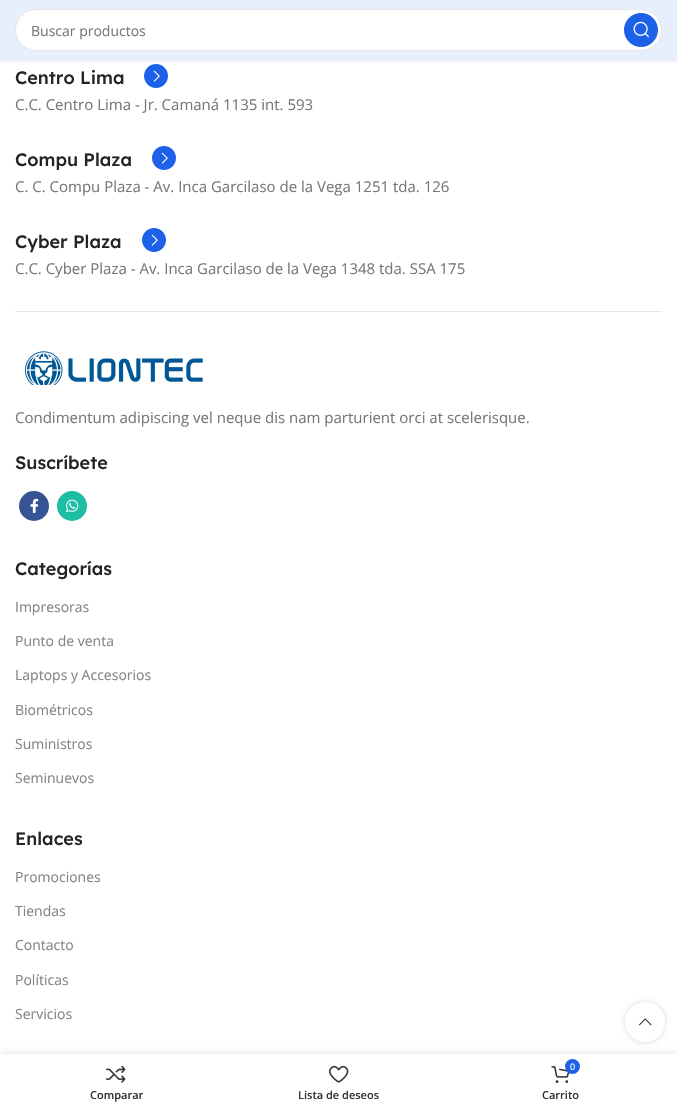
void draw(SkCanvas* canvas) {
	SkPaint paint;
	paint.setAntiAlias(true);
	auto svgPath = [&](const char* data, bool evenOdd = false) {
		SkPath result = *SkParsePath::FromSVGString(data);
		if (evenOdd) result.setFillType(SkPathFillType::kEvenOdd);
		return result;
	};
	canvas->clear(0xffffffff);
	canvas->drawImageRect(SkImages::DeferredFromEncodedData(SkData::MakeFromFileName("img2.png")), SkRect::MakeXYWH(144, 64, 24, 24), SkSamplingOptions());
	paint.setColor(0x1a000000);
	paint.setMaskFilter(SkMaskFilter::MakeBlur(kNormal_SkBlurStyle, 1.5));
	canvas->drawRect(SkRect::MakeXYWH(0, 1, 677, 60), paint);
	paint.setMaskFilter(nullptr);
	paint.setColor(0xffe6effd);
	canvas->drawRect(SkRect::MakeXYWH(0, 0, 677, 60), paint);
	paint.setColor(0xffffffff);
	canvas->drawRoundRect(SkRect::MakeXYWH(15, 9, 647, 42), 21, 21, paint);
	paint.setStroke(true);
	paint.setStrokeWidth(1);
	paint.setColor(0x1a000000);
	canvas->drawRoundRect(SkRect::MakeXYWH(15.5, 9.5, 646, 41), 20.5, 20.5, paint);
	SkFont f1(fontMgr->matchFamilyStyle("Open Sans", SkFontStyle::Normal()), 14);
	f1.setSubpixel(true);
	paint.setStroke(false);
	paint.setColor(0xff777777);
	canvas->drawString("Buscar productos", 31, 36, f1, paint);
	paint.setColor(0xff1c61e7);
	canvas->drawCircle(641, 30, 17, paint);
	canvas->drawImageRect(SkImages::DeferredFromEncodedData(SkData::MakeFromFileName("img1.png")), SkRect::MakeXYWH(633, 21, 16, 17), SkSamplingOptions());
	SkFont f2(fontMgr->matchFamilyStyle("Lexend Deca", SkFontStyle(500, SkFontStyle::kNormal_Width, SkFontStyle::kUpright_Slant)), 18);
	f2.setSubpixel(true);
	paint.setColor(0xff242424);
	canvas->drawString("Centro Lima", 15, 84, f2, paint);
	SkFont f3(fontMgr->matchFamilyStyle("Open Sans", SkFontStyle::Normal()), 15);
	f3.setSubpixel(true);
	paint.setColor(0xff777777);
	canvas->drawString("C.C. Centro Lima - Jr. Camaná 1135 int. 593", 15, 110, f3, paint);
	paint.setColor(0xff242424);
	canvas->drawString("Compu Plaza", 15, 166, f2, paint);
	canvas->drawImageRect(SkImages::DeferredFromEncodedData(SkData::MakeFromFileName("img2.png")), SkRect::MakeXYWH(152, 146, 24, 24), SkSamplingOptions());
	paint.setColor(0xff777777);
	canvas->drawString("C. C. Compu Plaza - Av. Inca Garcilaso de la Vega 1251 tda. 126", 15, 192, f3, paint);
	paint.setColor(0xff242424);
	canvas->drawString("Cyber Plaza", 15, 248, f2, paint);
	canvas->drawImageRect(SkImages::DeferredFromEncodedData(SkData::MakeFromFileName("img2.png")), SkRect::MakeXYWH(142, 228, 24, 24), SkSamplingOptions());
	paint.setColor(0xff777777);
	canvas->drawString("C.C. Cyber Plaza - Av. Inca Garcilaso de la Vega 1348 tda. SSA 175", 15, 274, f3, paint);
	paint.setColor(0xffe6e6e6);
	canvas->drawRect(SkRect::MakeXYWH(15, 311, 647, 1), paint);
	canvas->drawImageRect(SkImages::DeferredFromEncodedData(SkData::MakeFromFileName("img3.png")), SkRect::MakeXYWH(24, 351, 179, 34), SkSamplingOptions());
	paint.setColor(0xff777777);
	canvas->drawString("Condimentum adipiscing vel neque dis nam parturient orci at scelerisque.", 15, 423, f3, paint);
	paint.setColor(0xff242424);
	canvas->drawString("Suscríbete", 15, 469, f2, paint);
	paint.setColor(0xff365493);
	canvas->drawCircle(34, 506, 15, paint);
	canvas->drawImageRect(SkImages::DeferredFromEncodedData(SkData::MakeFromFileName("img4.png")), SkRect::MakeXYWH(30, 498, 9, 15), SkSamplingOptions());
	paint.setColor(0xff1ebea5);
	canvas->drawCircle(72, 506, 15, paint);
	canvas->drawImageRect(SkImages::DeferredFromEncodedData(SkData::MakeFromFileName("img5.png")), SkRect::MakeXYWH(66, 499, 13, 13), SkSamplingOptions());
	paint.setColor(0xff242424);
	canvas->drawString("Categorías", 15, 575, f2, paint);
	paint.setColor(0xff848484);
	canvas->drawString("Impresoras", 15, 612, f1, paint);
	canvas->drawString("Punto de venta", 15, 646, f1, paint);
	canvas->drawString("Laptops y Accesorios", 15, 680, f1, paint);
	canvas->drawString("Biométricos", 15, 715, f1, paint);
	canvas->drawString("Suministros", 15, 749, f1, paint);
	canvas->drawString("Seminuevos", 15, 783, f1, paint);
	paint.setColor(0xff242424);
	canvas->drawString("Enlaces", 15, 845, f2, paint);
	paint.setColor(0xff848484);
	canvas->drawString("Promociones", 15, 882, f1, paint);
	canvas->drawString("Tiendas", 15, 916, f1, paint);
	canvas->drawString("Contacto", 15, 950, f1, paint);
	canvas->drawString("Políticas", 15, 985, f1, paint);
	canvas->drawString("Servicios", 15, 1019, f1, paint);
	canvas->save();
	canvas->clipPath(svgPath("M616 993H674V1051H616ZM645 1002C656 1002 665 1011 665 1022C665 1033 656 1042 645 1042C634 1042 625 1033 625 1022C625 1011 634 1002 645 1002Z", true), true);
	paint.setColor(0x2b000000);
	paint.setMaskFilter(SkMaskFilter::MakeBlur(kNormal_SkBlurStyle, 2.5));
	canvas->drawRoundRect(SkRect::MakeXYWH(625, 1002, 40, 40), 20, 20, paint);
	paint.setMaskFilter(nullptr);
	canvas->restore();
	paint.setColor(0xe6ffffff);
	canvas->drawCircle(645, 1022, 20, paint);
	canvas->drawImageRect(SkImages::DeferredFromEncodedData(SkData::MakeFromFileName("img6.png")), SkRect::MakeXYWH(639, 1018, 13, 8), SkSamplingOptions());
	paint.setColor(0x1f000000);
	paint.setMaskFilter(SkMaskFilter::MakeBlur(kNormal_SkBlurStyle, 4.5));
	canvas->drawRect(SkRect::MakeXYWH(0, 1054, 677, 55), paint);
	paint.setMaskFilter(nullptr);
	paint.setColor(0xffffffff);
	canvas->drawRect(SkRect::MakeXYWH(0, 1054, 677, 55), paint);
	canvas->drawImageRect(SkImages::DeferredFromEncodedData(SkData::MakeFromFileName("img7.png")), SkRect::MakeXYWH(106, 1065, 20, 18), SkSamplingOptions());
	SkFont f4(fontMgr->matchFamilyStyle("Open Sans", SkFontStyle(600, SkFontStyle::kNormal_Width, SkFontStyle::kUpright_Slant)), 11);
	f4.setSubpixel(true);
	paint.setColor(0xff333333);
	canvas->drawString("Comparar", 90, 1099, f4, paint);
	canvas->drawImageRect(SkImages::DeferredFromEncodedData(SkData::MakeFromFileName("img8.png")), SkRect::MakeXYWH(329, 1065, 20, 18), SkSamplingOptions());
	canvas->drawString("Lista de deseos", 298, 1099, f4, paint);
	canvas->drawImageRect(SkImages::DeferredFromEncodedData(SkData::MakeFromFileName("img9.png")), SkRect::MakeXYWH(551, 1066, 19, 17), SkSamplingOptions());
	paint.setColor(0xff1c61e7);
	canvas->drawCircle(572.5, 1066.5, 7.5, paint);
	SkFont f5(fontMgr->matchFamilyStyle("Open Sans", SkFontStyle::Normal()), 9);
	f5.setSubpixel(true);
	paint.setColor(0xffffffff);
	canvas->drawString("0", 570, 1070, f5, paint);
	paint.setColor(0xff333333);
	canvas->drawString("Carrito", 542, 1099, f4, paint);
}
